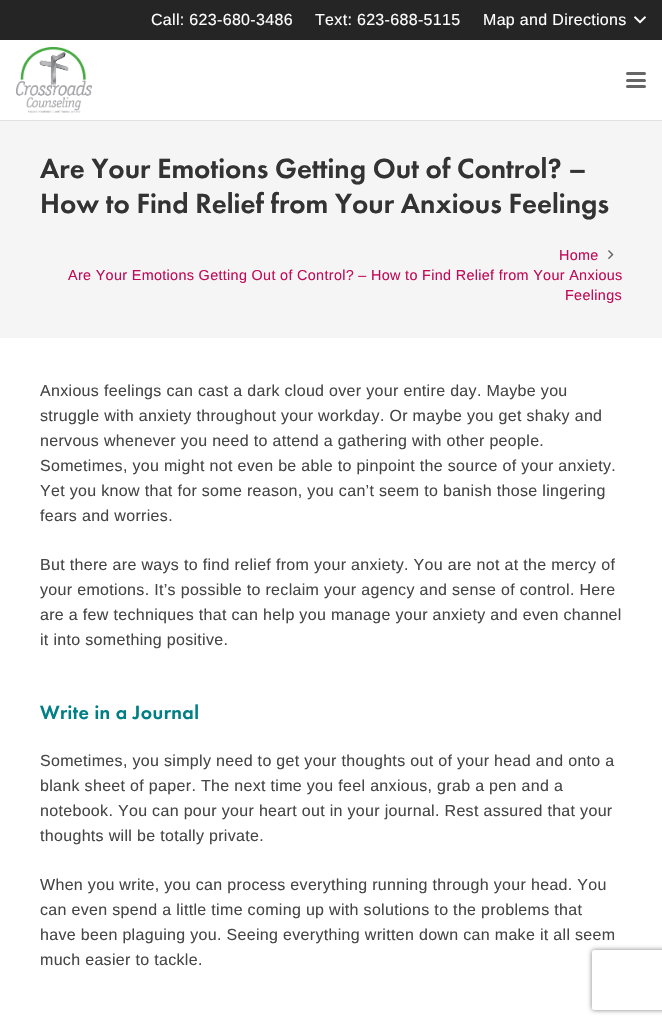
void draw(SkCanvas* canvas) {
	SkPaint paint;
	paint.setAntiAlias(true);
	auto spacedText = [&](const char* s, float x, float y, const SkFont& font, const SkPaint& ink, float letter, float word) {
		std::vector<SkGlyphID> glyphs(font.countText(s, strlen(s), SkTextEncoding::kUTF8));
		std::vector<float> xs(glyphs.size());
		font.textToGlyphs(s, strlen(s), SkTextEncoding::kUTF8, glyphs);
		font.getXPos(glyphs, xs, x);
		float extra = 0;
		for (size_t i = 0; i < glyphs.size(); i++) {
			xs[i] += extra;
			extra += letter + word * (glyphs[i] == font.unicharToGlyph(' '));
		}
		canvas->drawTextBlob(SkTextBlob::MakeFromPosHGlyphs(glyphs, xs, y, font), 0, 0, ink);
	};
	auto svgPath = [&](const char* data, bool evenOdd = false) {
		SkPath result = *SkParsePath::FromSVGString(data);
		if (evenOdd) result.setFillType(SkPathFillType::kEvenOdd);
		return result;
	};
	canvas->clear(0xffffffff);
	paint.setColor(0xff252525);
	canvas->drawRect(SkRect::MakeXYWH(0, 0, 662, 40), paint);
	SkFont f1(fontMgr->matchFamilyStyle("Liberation Sans", SkFontStyle::Normal()), 16);
	f1.setSubpixel(true);
	paint.setColor(0xffffffff);
	spacedText("Call: 623-680-3486", 151, 25, f1, paint, 0.32, 0);
	spacedText("Text: 623-688-5115", 315, 25, f1, paint, 0.32, 0);
	spacedText("Map and Directions", 483, 25, f1, paint, 0.32, 0);
	canvas->drawImageRect(SkImages::DeferredFromEncodedData(SkData::MakeFromFileName("img1.png")), SkRect::MakeXYWH(634, 16, 12, 8), SkSamplingOptions());
	paint.setColor(0xffe1e1e1);
	canvas->drawRect(SkRect::MakeXYWH(0, 120, 662, 1), paint);
	canvas->drawImageRect(SkImages::DeferredFromEncodedData(SkData::MakeFromFileName("img2.png")), SkRect::MakeXYWH(16, 47, 76, 66), SkSamplingOptions());
	paint.setColor(0xff666666);
	canvas->drawRoundRect(SkRect::MakeXYWH(626, 79, 20, 3), 1.5, 1.5, paint);
	canvas->drawRoundRect(SkRect::MakeXYWH(626, 72, 20, 3), 1.5, 1.5, paint);
	canvas->drawRoundRect(SkRect::MakeXYWH(626, 85, 20, 3), 1.5, 1.5, paint);
	paint.setColor(0xfff5f5f5);
	canvas->drawRect(SkRect::MakeXYWH(0, 121, 662, 217), paint);
	SkFont f2(fontMgr->matchFamilyStyle("Futura PT", SkFontStyle(500, SkFontStyle::kNormal_Width, SkFontStyle::kUpright_Slant)), 28.75);
	f2.setSubpixel(true);
	paint.setColor(0xff333333);
	canvas->drawString("Are Your Emotions Getting Out of Control? –", 40, 178, f2, paint);
	canvas->drawString("How to Find Relief from Your Anxious Feelings", 40, 213, f2, paint);
	SkFont f3(fontMgr->matchFamilyStyle("Liberation Sans", SkFontStyle::Normal()), 14.4);
	f3.setSubpixel(true);
	paint.setColor(0xffc20b58);
	spacedText("Home", 559, 260, f3, paint, 0.32, 0);
	canvas->drawImageRect(SkImages::DeferredFromEncodedData(SkData::MakeFromFileName("img3.png")), SkRect::MakeXYWH(608, 250, 6, 9), SkSamplingOptions());
	spacedText("Are Your Emotions Getting Out of Control? – How to Find Relief from Your Anxious", 68, 280, f3, paint, 0.32, 0);
	spacedText("Feelings", 565, 300, f3, paint, 0.32, 0);
	paint.setColor(0xff464646);
	spacedText("Anxious feelings can cast a dark cloud over your entire day. Maybe you", 40, 396, f1, paint, 0.32, 0);
	spacedText("struggle with anxiety throughout your workday. Or maybe you get shaky and", 40, 421, f1, paint, 0.32, 0);
	spacedText("nervous whenever you need to attend a gathering with other people.", 40, 446, f1, paint, 0.32, 0);
	spacedText("Sometimes, you might not even be able to pinpoint the source of your anxiety.", 40, 471, f1, paint, 0.32, 0);
	spacedText("Yet you know that for some reason, you can’t seem to banish those lingering", 40, 496, f1, paint, 0.32, 0);
	spacedText("fears and worries.", 40, 521, f1, paint, 0.32, 0);
	spacedText("But there are ways to find relief from your anxiety. You are not at the mercy of", 40, 570, f1, paint, 0.32, 0);
	spacedText("your emotions. It’s possible to reclaim your agency and sense of control. Here", 40, 595, f1, paint, 0.32, 0);
	spacedText("are a few techniques that can help you manage your anxiety and even channel", 40, 620, f1, paint, 0.32, 0);
	spacedText("it into something positive.", 40, 645, f1, paint, 0.32, 0);
	SkFont f4(fontMgr->matchFamilyStyle("Futura PT", SkFontStyle(500, SkFontStyle::kNormal_Width, SkFontStyle::kUpright_Slant)), 20);
	f4.setSubpixel(true);
	paint.setColor(0xff008084);
	spacedText("Write in a Journal", 40, 719, f4, paint, 0.4, 0);
	paint.setColor(0xff464646);
	spacedText("Sometimes, you simply need to get your thoughts out of your head and onto a", 40, 766, f1, paint, 0.32, 0);
	spacedText("blank sheet of paper. The next time you feel anxious, grab a pen and a", 40, 791, f1, paint, 0.32, 0);
	spacedText("notebook. You can pour your heart out in your journal. Rest assured that your", 40, 816, f1, paint, 0.32, 0);
	spacedText("thoughts will be totally private.", 40, 841, f1, paint, 0.32, 0);
	spacedText("When you write, you can process everything running through your head. You", 40, 890, f1, paint, 0.32, 0);
	spacedText("can even spend a little time coming up with solutions to the problems that", 40, 915, f1, paint, 0.32, 0);
	spacedText("have been plaguing you. Seeing everything written down can make it all seem", 40, 940, f1, paint, 0.32, 0);
	spacedText("much easier to tackle.", 40, 965, f1, paint, 0.32, 0);
	canvas->save();
	canvas->clipPath(svgPath("M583 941H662V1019H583ZM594 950H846C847 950 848 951 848 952V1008C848 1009 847 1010 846 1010H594C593 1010 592 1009 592 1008V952C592 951 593 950 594 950Z", true), true);
	paint.setColor(0xff808080);
	paint.setMaskFilter(SkMaskFilter::MakeBlur(kNormal_SkBlurStyle, 2.5));
	canvas->drawRoundRect(SkRect::MakeXYWH(592, 950, 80, 60), 2, 2, paint);
	paint.setMaskFilter(nullptr);
	canvas->restore();
}
